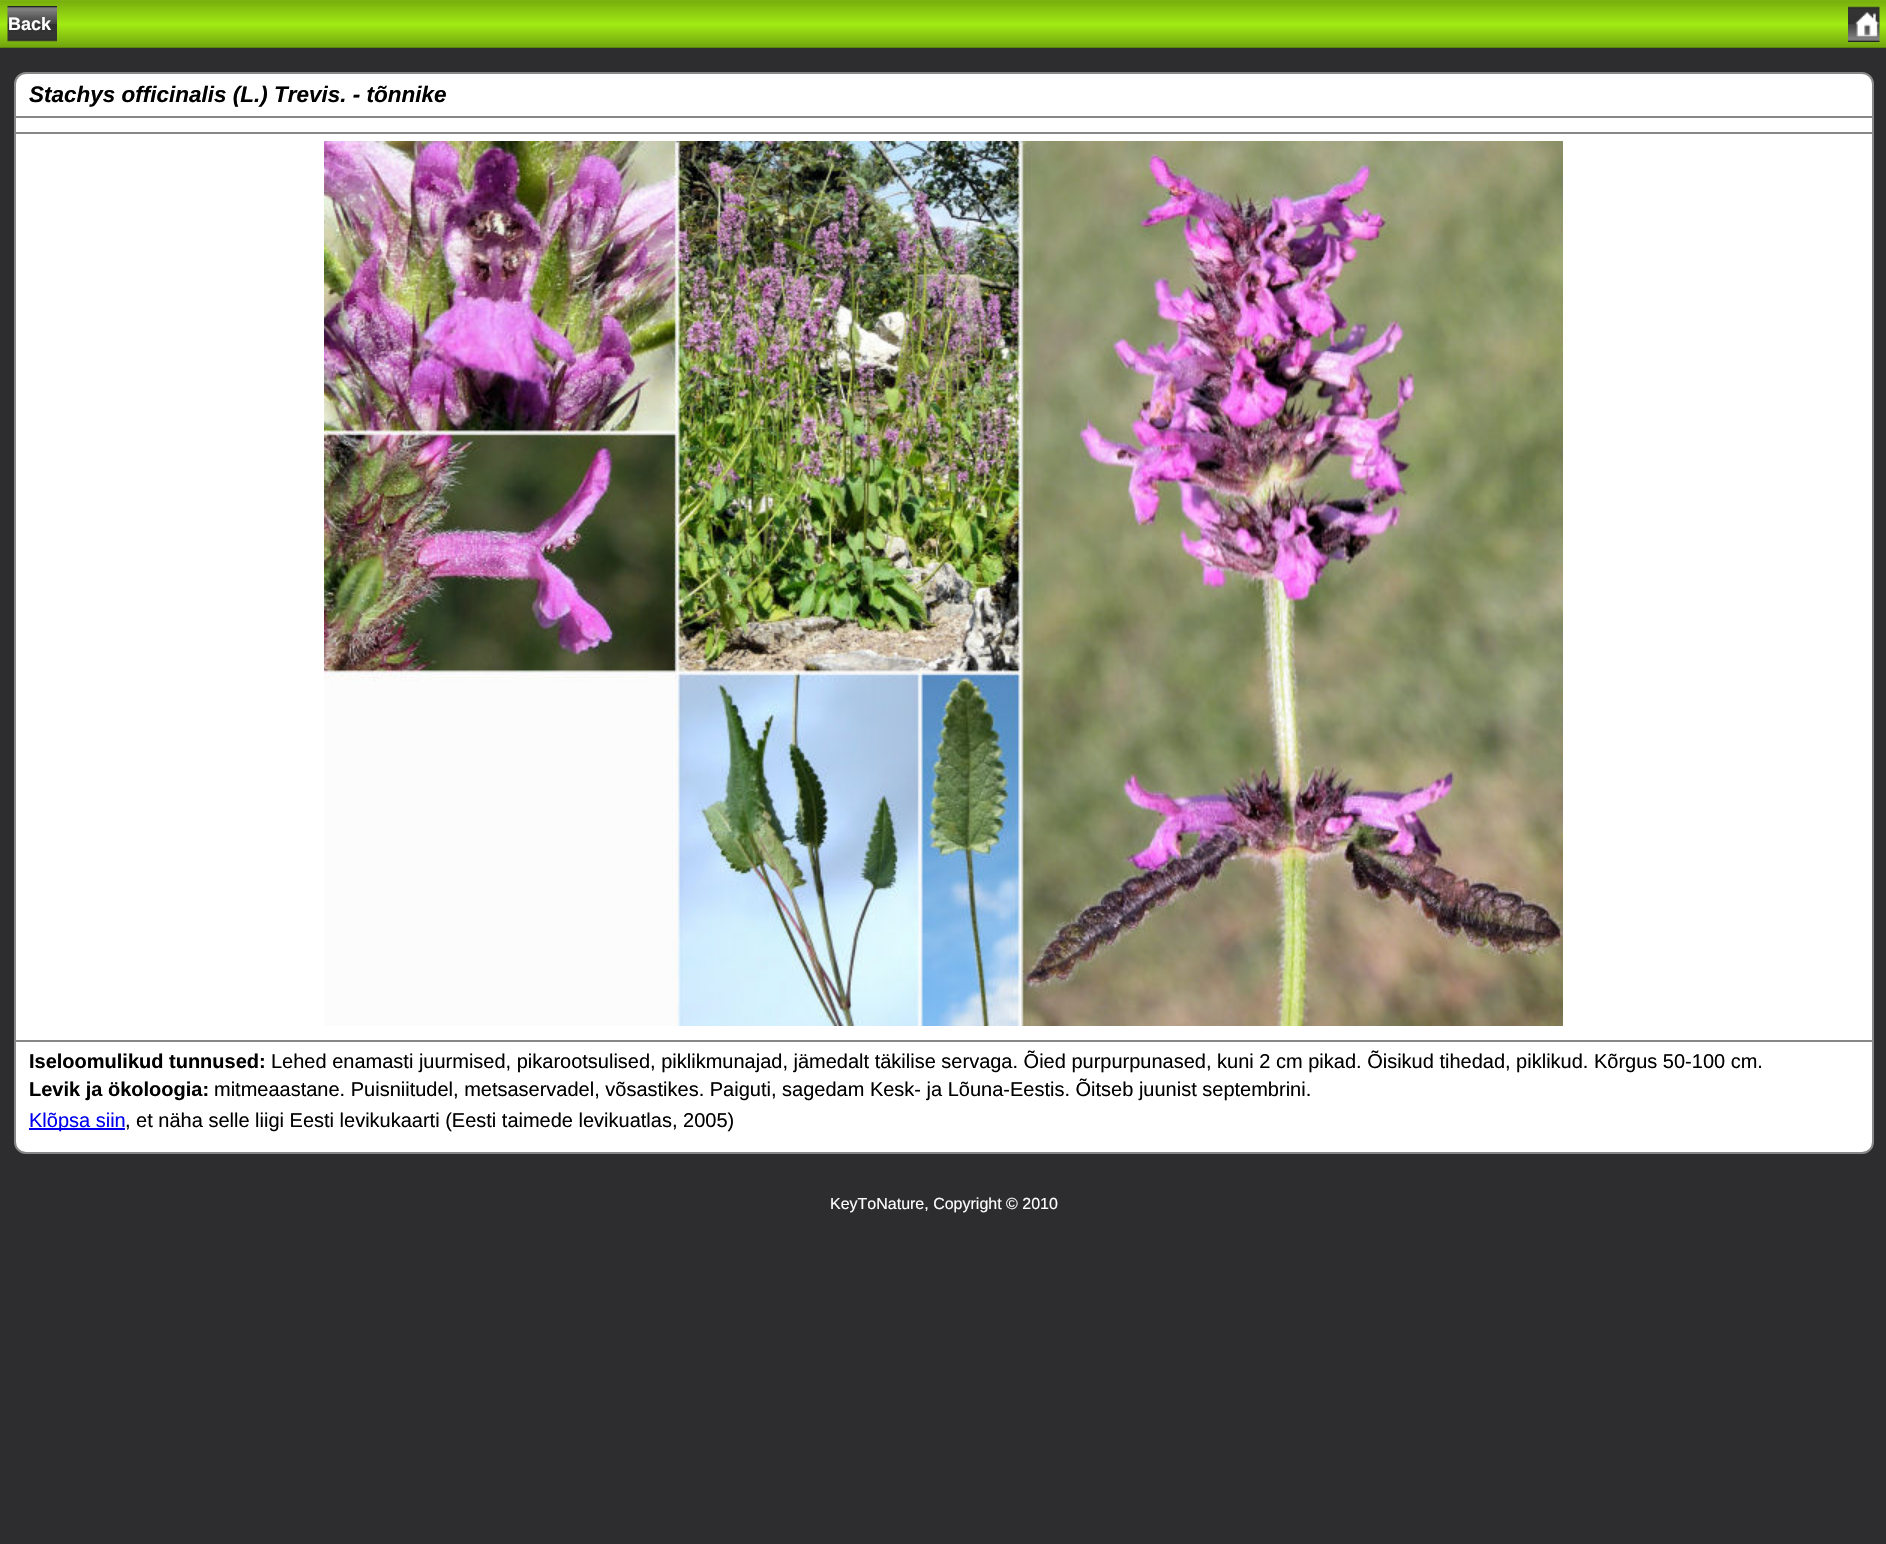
void draw(SkCanvas* canvas) {
	SkPaint paint;
	paint.setAntiAlias(true);
	canvas->clear(0xff2d2d2f);
	{
		const SkColor colors[] = {0xff7cb40f, 0xff79b00e, 0xffa1ea13, 0xffa1ea13, 0xff72a60e, 0xff50740a};
		const float stops[] = {0, 0.03, 0.5, 0.51, 0.97, 1};
		const SkPoint ends[] = {{0, 0}, {0, 48}};
		paint.setShader(SkGradientShader::MakeLinear(ends, colors, stops, 6, SkTileMode::kClamp));
		paint.setAlpha(255);
	}
	canvas->drawRect(SkRect::MakeXYWH(0, 0, 1886, 48), paint);
	canvas->drawImageRect(SkImages::DeferredFromEncodedData(SkData::MakeFromFileName("img1.png")), SkRect::MakeXYWH(7, 6, 50, 36), SkSamplingOptions());
	SkFont f1(fontMgr->matchFamilyStyle("Liberation Sans", SkFontStyle::Bold()), 18);
	f1.setSubpixel(true);
	paint.setShader(nullptr);
	paint.setColor(0xffffffff);
	canvas->drawString("Back", 8, 30, f1, paint);
	canvas->drawImageRect(SkImages::DeferredFromEncodedData(SkData::MakeFromFileName("img2.png")), SkRect::MakeXYWH(1848, 6, 32, 36), SkSamplingOptions());
	canvas->drawImageRect(SkImages::DeferredFromEncodedData(SkData::MakeFromFileName("img3.png")), SkRect::MakeXYWH(1855, 12, 25, 25), SkSamplingOptions());
	canvas->drawRoundRect(SkRect::MakeXYWH(15, 73, 1858, 1080), 11, 11, paint);
	paint.setStroke(true);
	paint.setStrokeWidth(2);
	paint.setColor(0xff878787);
	canvas->drawRoundRect(SkRect::MakeXYWH(15, 73, 1858, 1080), 11, 11, paint);
	SkFont f2(fontMgr->matchFamilyStyle("Liberation Sans", SkFontStyle::BoldItalic()), 22.5);
	f2.setSubpixel(true);
	paint.setStroke(false);
	paint.setColor(0xff000000);
	canvas->drawString("Stachys officinalis (L.) Trevis. - tõnnike", 29, 102, f2, paint);
	paint.setColor(0xff878787);
	canvas->drawRect(SkRect::MakeXYWH(15, 116, 1857, 2), paint);
	canvas->drawRect(SkRect::MakeXYWH(15, 132, 1857, 2), paint);
	canvas->drawImageRect(SkImages::DeferredFromEncodedData(SkData::MakeFromFileName("img4.png")), SkRect::MakeXYWH(324, 141, 1239, 885), SkSamplingOptions());
	canvas->drawRect(SkRect::MakeXYWH(15, 1040, 1857, 2), paint);
	SkFont f3(fontMgr->matchFamilyStyle("Liberation Sans", SkFontStyle::Bold()), 20);
	f3.setSubpixel(true);
	paint.setColor(0xff000000);
	canvas->drawString("Iseloomulikud tunnused:", 29, 1068, f3, paint);
	SkFont f4(fontMgr->matchFamilyStyle("Liberation Sans", SkFontStyle::Normal()), 20);
	f4.setSubpixel(true);
	canvas->drawString("Lehed enamasti juurmised, pikarootsulised, piklikmunajad, jämedalt täkilise servaga. Õied purpurpunased, kuni 2 cm pikad. Õisikud tihedad, piklikud. Kõrgus 50-100 cm.", 271, 1068, f4, paint);
	canvas->drawString("Levik ja ökoloogia:", 29, 1096, f3, paint);
	canvas->drawString("mitmeaastane. Puisniitudel, metsaservadel, võsastikes. Paiguti, sagedam Kesk- ja Lõuna-Eestis. Õitseb juunist septembrini.", 214, 1096, f4, paint);
	paint.setColor(0xff0000ee);
	canvas->drawRect(SkRect::MakeXYWH(29, 1128, 96, 2), paint);
	canvas->drawString("Klõpsa siin", 29, 1127, f4, paint);
	paint.setColor(0xff000000);
	canvas->drawString(", et näha selle liigi Eesti levikukaarti (Eesti taimede levikuatlas, 2005)", 125, 1127, f4, paint);
	SkFont f5(fontMgr->matchFamilyStyle("Liberation Sans", SkFontStyle::Normal()), 16);
	f5.setSubpixel(true);
	paint.setColor(0xffffffff);
	canvas->drawString("KeyToNature, Copyright © 2010", 830, 1209, f5, paint);
}
